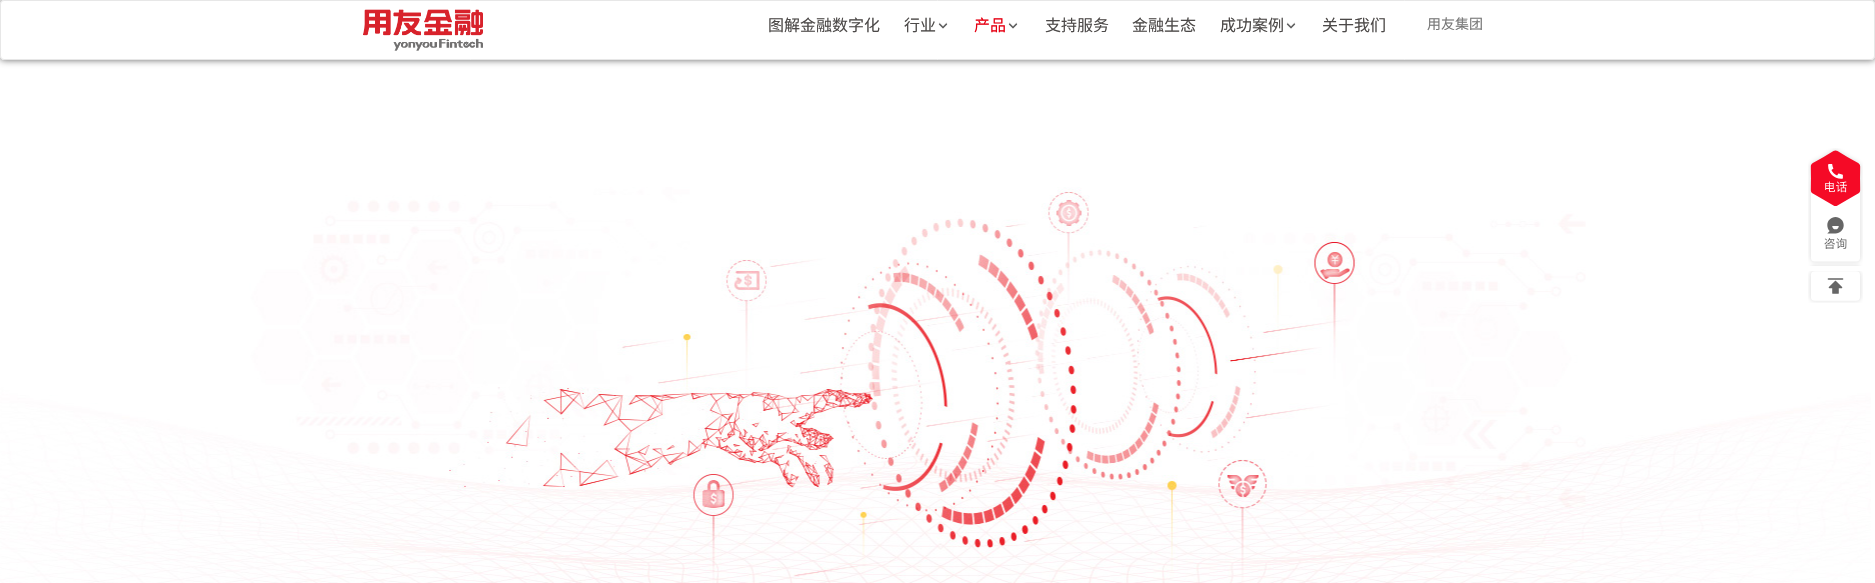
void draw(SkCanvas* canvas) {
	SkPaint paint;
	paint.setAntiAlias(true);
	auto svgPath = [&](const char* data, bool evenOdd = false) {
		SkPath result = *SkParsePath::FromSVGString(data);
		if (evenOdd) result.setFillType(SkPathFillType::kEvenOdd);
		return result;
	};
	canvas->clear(0xffffffff);
	canvas->save();
	canvas->clipPath(svgPath("M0 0H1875V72H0ZM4 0H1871C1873 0 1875 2 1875 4V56C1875 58 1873 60 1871 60H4C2 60 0 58 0 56V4C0 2 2 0 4 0Z", true), true);
	paint.setColor(0xff656565);
	paint.setMaskFilter(SkMaskFilter::MakeBlur(kNormal_SkBlurStyle, 3.5));
	canvas->drawRoundRect(SkRect::MakeXYWH(0, 0, 1875, 60), 4, 4, paint);
	paint.setMaskFilter(nullptr);
	canvas->restore();
	paint.setStroke(true);
	paint.setStrokeWidth(1);
	paint.setColor(0xffe7e7e7);
	canvas->drawRoundRect(SkRect::MakeXYWH(0.5, 0.5, 1874, 59), 3.5, 3.5, paint);
	canvas->drawImageRect(SkImages::DeferredFromEncodedData(SkData::MakeFromFileName("img1.png")), SkRect::MakeXYWH(363, 9, 120, 42), SkSamplingOptions());
	SkFont f1(fontMgr->matchFamilyStyle("Noto Sans CJK SC", SkFontStyle::Normal()), 16);
	f1.setSubpixel(true);
	paint.setStroke(false);
	paint.setColor(0xff4c4948);
	canvas->drawString("图解金融数字化", 768, 31, f1, paint);
	canvas->drawString("行业", 904, 31, f1, paint);
	canvas->drawImageRect(SkImages::DeferredFromEncodedData(SkData::MakeFromFileName("img2.png")), SkRect::MakeXYWH(938, 22, 10, 7), SkSamplingOptions());
	paint.setColor(0xffe60012);
	canvas->drawString("产品", 974, 31, f1, paint);
	canvas->drawImageRect(SkImages::DeferredFromEncodedData(SkData::MakeFromFileName("img2.png")), SkRect::MakeXYWH(1008, 22, 10, 7), SkSamplingOptions());
	paint.setColor(0xff4c4948);
	canvas->drawString("支持服务", 1045, 31, f1, paint);
	canvas->drawString("金融生态", 1132, 31, f1, paint);
	canvas->drawString("成功案例", 1220, 31, f1, paint);
	canvas->drawImageRect(SkImages::DeferredFromEncodedData(SkData::MakeFromFileName("img2.png")), SkRect::MakeXYWH(1286, 22, 10, 7), SkSamplingOptions());
	canvas->drawString("关于我们", 1322, 31, f1, paint);
	SkFont f2(fontMgr->matchFamilyStyle("Noto Sans CJK SC", SkFontStyle::Normal()), 14);
	f2.setSubpixel(true);
	paint.setColor(0xff777777);
	canvas->drawString("用友集团", 1427, 29, f2, paint);
	canvas->drawImageRect(SkImages::DeferredFromEncodedData(SkData::MakeFromFileName("img5.png")), SkRect::MakeXYWH(0, 187, 1871, 396), SkSamplingOptions());
	canvas->drawImageRect(SkImages::DeferredFromEncodedData(SkData::MakeFromFileName("img3.png")), SkRect::MakeXYWH(1808, 148, 55, 118), SkSamplingOptions());
	canvas->drawImageRect(SkImages::DeferredFromEncodedData(SkData::MakeFromFileName("img4.png")), SkRect::MakeXYWH(1808, 271, 55, 32), SkSamplingOptions());
}
